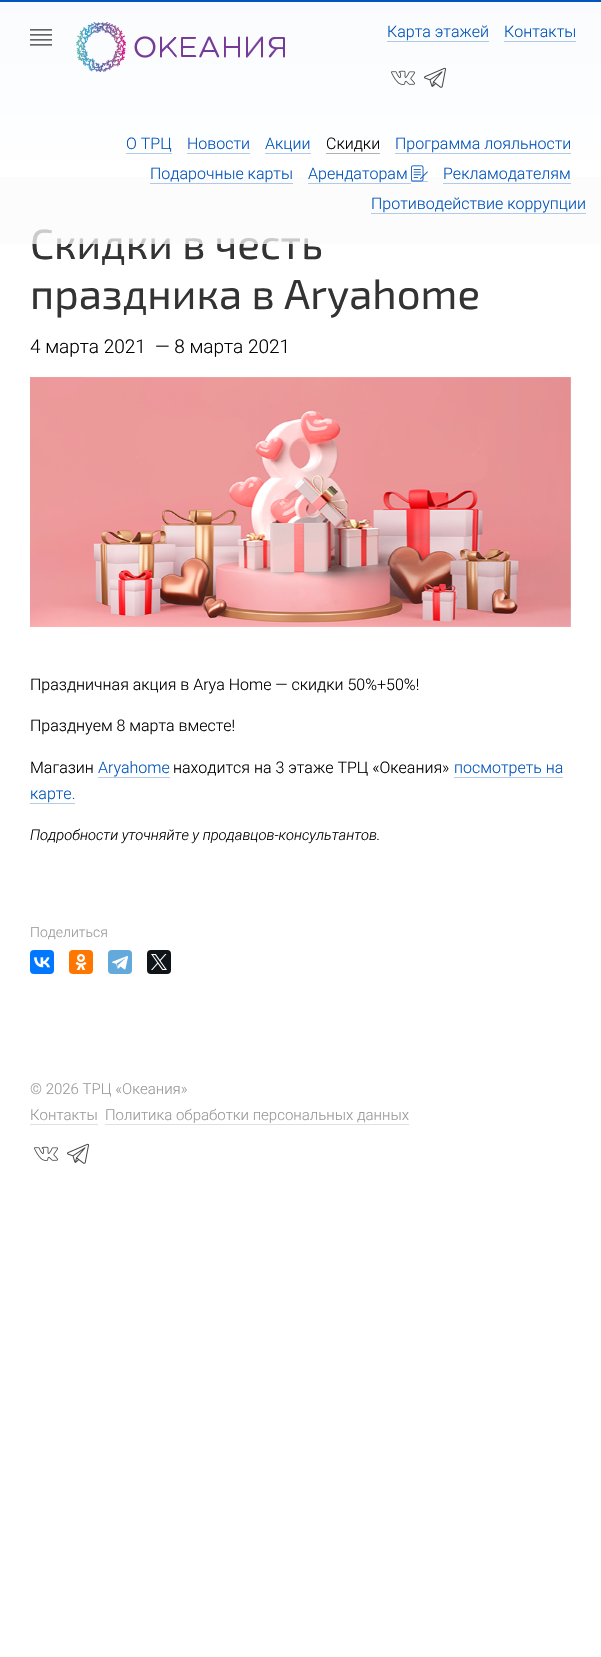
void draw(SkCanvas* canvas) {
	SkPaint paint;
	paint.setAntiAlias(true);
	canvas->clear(0xffffffff);
	{
		const SkColor colors[] = {0xfff3f7fc, 0xffffffff};
		const float stops[] = {0, 1};
		const SkPoint ends[] = {{301, 2}, {301, 202}};
		paint.setShader(SkGradientShader::MakeLinear(ends, colors, stops, 2, SkTileMode::kClamp));
		paint.setAlpha(255);
	}
	canvas->drawRect(SkRect::MakeXYWH(0, 2, 601, 158), paint);
	SkFont f1(fontMgr->matchFamilyStyle("Exo 2", SkFontStyle::Normal()), 42);
	f1.setSubpixel(true);
	paint.setShader(nullptr);
	paint.setColor(0xff333333);
	canvas->drawString("Скидки в честь", 30, 259, f1, paint);
	paint.setColor(0x80ffffff);
	canvas->drawRect(SkRect::MakeXYWH(0, 2, 601, 242), paint);
	canvas->drawImageRect(SkImages::DeferredFromEncodedData(SkData::MakeFromFileName("img1.png")), SkRect::MakeXYWH(30, 29, 22, 17), SkSamplingOptions());
	paint.setColor(0x82f9fafa);
	canvas->drawRect(SkRect::MakeXYWH(0, 177, 601, 67), paint);
	paint.setColor(0xff0154bb);
	canvas->drawRect(SkRect::MakeXYWH(0, 0, 601, 2), paint);
	canvas->drawImageRect(SkImages::DeferredFromEncodedData(SkData::MakeFromFileName("img2.png")), SkRect::MakeXYWH(76, 22, 209, 50), SkSamplingOptions());
	SkFont f2(fontMgr->matchFamilyStyle("Roboto", SkFontStyle(300, SkFontStyle::kNormal_Width, SkFontStyle::kUpright_Slant)), 16);
	f2.setSubpixel(true);
	canvas->drawString("Карта этажей", 387, 37, f2, paint);
	paint.setColor(0xffafc9e9);
	canvas->drawRect(SkRect::MakeXYWH(387, 41, 102, 1), paint);
	paint.setColor(0xff0154bb);
	canvas->drawString("Контакты", 504, 37, f2, paint);
	paint.setColor(0xffafc9e9);
	canvas->drawRect(SkRect::MakeXYWH(504, 41, 72, 1), paint);
	canvas->drawImageRect(SkImages::DeferredFromEncodedData(SkData::MakeFromFileName("img3.png")), SkRect::MakeXYWH(391, 70, 24, 15), SkSamplingOptions());
	canvas->drawImageRect(SkImages::DeferredFromEncodedData(SkData::MakeFromFileName("img4.png")), SkRect::MakeXYWH(424, 67, 22, 21), SkSamplingOptions());
	paint.setColor(0xff0154bb);
	canvas->drawString("О ТРЦ", 126, 149, f2, paint);
	paint.setColor(0xffb0cae9);
	canvas->drawRect(SkRect::MakeXYWH(126, 153, 46, 1), paint);
	paint.setColor(0xff0154bb);
	canvas->drawString("Новости", 187, 149, f2, paint);
	paint.setColor(0xffb0cae9);
	canvas->drawRect(SkRect::MakeXYWH(187, 153, 63, 1), paint);
	paint.setColor(0xff0154bb);
	canvas->drawString("Акции", 265, 149, f2, paint);
	paint.setColor(0xffb0cae9);
	canvas->drawRect(SkRect::MakeXYWH(265, 153, 46, 1), paint);
	paint.setColor(0xff000000);
	canvas->drawString("Скидки", 326, 149, f2, paint);
	paint.setColor(0xffb0b0b1);
	canvas->drawRect(SkRect::MakeXYWH(326, 153, 54, 1), paint);
	paint.setColor(0xff0154bb);
	canvas->drawString("Программа лояльности", 395, 149, f2, paint);
	paint.setColor(0xffb0cae9);
	canvas->drawRect(SkRect::MakeXYWH(395, 153, 176, 1), paint);
	paint.setColor(0xff0154bb);
	canvas->drawString("Подарочные карты", 150, 179, f2, paint);
	paint.setColor(0x4d0154bb);
	canvas->drawRect(SkRect::MakeXYWH(150, 183, 143, 1), paint);
	paint.setColor(0xff0154bb);
	canvas->drawString("Арендаторам", 308, 179, f2, paint);
	paint.setColor(0xffb1cae9);
	canvas->drawRect(SkRect::MakeXYWH(308, 183, 103, 1), paint);
	canvas->drawRect(SkRect::MakeXYWH(411, 181, 17, 1), paint);
	canvas->drawImageRect(SkImages::DeferredFromEncodedData(SkData::MakeFromFileName("img5.png")), SkRect::MakeXYWH(411, 165, 17, 17), SkSamplingOptions());
	paint.setColor(0xff0154bb);
	canvas->drawString("Рекламодателям", 443, 179, f2, paint);
	paint.setColor(0xffb1cae9);
	canvas->drawRect(SkRect::MakeXYWH(443, 183, 128, 1), paint);
	paint.setColor(0xff0154bb);
	canvas->drawString("Противодействие коррупции", 371, 209, f2, paint);
	paint.setColor(0xffb1cae9);
	canvas->drawRect(SkRect::MakeXYWH(371, 213, 215, 1), paint);
	paint.setColor(0xff333333);
	canvas->drawString("праздника в Aryahome", 30, 309, f1, paint);
	SkFont f3(fontMgr->matchFamilyStyle("Roboto", SkFontStyle(300, SkFontStyle::kNormal_Width, SkFontStyle::kUpright_Slant)), 19);
	f3.setSubpixel(true);
	paint.setColor(0xff000000);
	canvas->drawString("4 марта 2021", 30, 353, f3, paint);
	canvas->drawString("— 8 марта 2021", 155, 353, f3, paint);
	canvas->drawImageRect(SkImages::DeferredFromEncodedData(SkData::MakeFromFileName("img6.png")), SkRect::MakeXYWH(30, 377, 541, 250), SkSamplingOptions());
	canvas->drawString("Праздничная акция в Arya Home — скидки 50%+50%!", 30, 690, f2, paint);
	canvas->drawString("Празднуем 8 марта вместе!", 30, 731, f2, paint);
	canvas->drawString("Магазин", 30, 773, f2, paint);
	paint.setColor(0xff0154bb);
	canvas->drawString("Aryahome", 98, 773, f2, paint);
	paint.setColor(0xffb3cceb);
	canvas->drawRect(SkRect::MakeXYWH(98, 777, 72, 1), paint);
	paint.setColor(0xff000000);
	canvas->drawString("находится на 3 этаже ТРЦ «Океания»", 173, 773, f2, paint);
	paint.setColor(0xff0154bb);
	canvas->drawString("посмотреть на", 454, 773, f2, paint);
	paint.setColor(0xffb3cceb);
	canvas->drawRect(SkRect::MakeXYWH(454, 777, 109, 1), paint);
	paint.setColor(0xff0154bb);
	canvas->drawString("карте.", 30, 799, f2, paint);
	paint.setColor(0xffb3cceb);
	canvas->drawRect(SkRect::MakeXYWH(30, 803, 45, 1), paint);
	SkFont f4(fontMgr->matchFamilyStyle("Roboto", SkFontStyle(300, SkFontStyle::kNormal_Width, SkFontStyle::kItalic_Slant)), 14.7);
	f4.setSubpixel(true);
	paint.setColor(0xff000000);
	canvas->drawString("Подробности уточняйте у продавцов-консультантов.", 30, 840, f4, paint);
	SkFont f5(fontMgr->matchFamilyStyle("Roboto", SkFontStyle(300, SkFontStyle::kNormal_Width, SkFontStyle::kUpright_Slant)), 14);
	f5.setSubpixel(true);
	paint.setColor(0xff999999);
	canvas->drawString("Поделиться", 30, 937, f5, paint);
	paint.setColor(0xff0077ff);
	canvas->drawRoundRect(SkRect::MakeXYWH(30, 950, 24, 24), 4, 4, paint);
	canvas->drawImageRect(SkImages::DeferredFromEncodedData(SkData::MakeFromFileName("img7.png")), SkRect::MakeXYWH(34, 957, 16, 11), SkSamplingOptions());
	paint.setColor(0xffff7700);
	canvas->drawRoundRect(SkRect::MakeXYWH(69, 950, 24, 24), 4, 4, paint);
	canvas->drawImageRect(SkImages::DeferredFromEncodedData(SkData::MakeFromFileName("img8.png")), SkRect::MakeXYWH(75, 954, 12, 16), SkSamplingOptions());
	paint.setColor(0xff64a9dc);
	canvas->drawRoundRect(SkRect::MakeXYWH(108, 950, 24, 24), 4, 4, paint);
	canvas->drawImageRect(SkImages::DeferredFromEncodedData(SkData::MakeFromFileName("img9.png")), SkRect::MakeXYWH(112, 956, 16, 14), SkSamplingOptions());
	paint.setColor(0xff0f1419);
	canvas->drawRoundRect(SkRect::MakeXYWH(147, 950, 24, 24), 4, 4, paint);
	canvas->drawImageRect(SkImages::DeferredFromEncodedData(SkData::MakeFromFileName("img10.png")), SkRect::MakeXYWH(151, 954, 16, 16), SkSamplingOptions());
	SkFont f6(fontMgr->matchFamilyStyle("Roboto", SkFontStyle(300, SkFontStyle::kNormal_Width, SkFontStyle::kUpright_Slant)), 15);
	f6.setSubpixel(true);
	paint.setColor(0xff999999);
	canvas->drawString("© 2026 ТРЦ «Океания»", 30, 1094, f6, paint);
	canvas->drawString("Контакты", 30, 1120, f6, paint);
	paint.setColor(0xffe0e0e0);
	canvas->drawRect(SkRect::MakeXYWH(30, 1124, 68, 1), paint);
	paint.setColor(0xff999999);
	canvas->drawString("Политика обработки персональных данных", 105, 1120, f6, paint);
	paint.setColor(0xffe0e0e0);
	canvas->drawRect(SkRect::MakeXYWH(105, 1124, 304, 1), paint);
	canvas->drawImageRect(SkImages::DeferredFromEncodedData(SkData::MakeFromFileName("img11.png")), SkRect::MakeXYWH(34, 1146, 24, 15), SkSamplingOptions());
	canvas->drawImageRect(SkImages::DeferredFromEncodedData(SkData::MakeFromFileName("img12.png")), SkRect::MakeXYWH(67, 1143, 22, 21), SkSamplingOptions());
}
